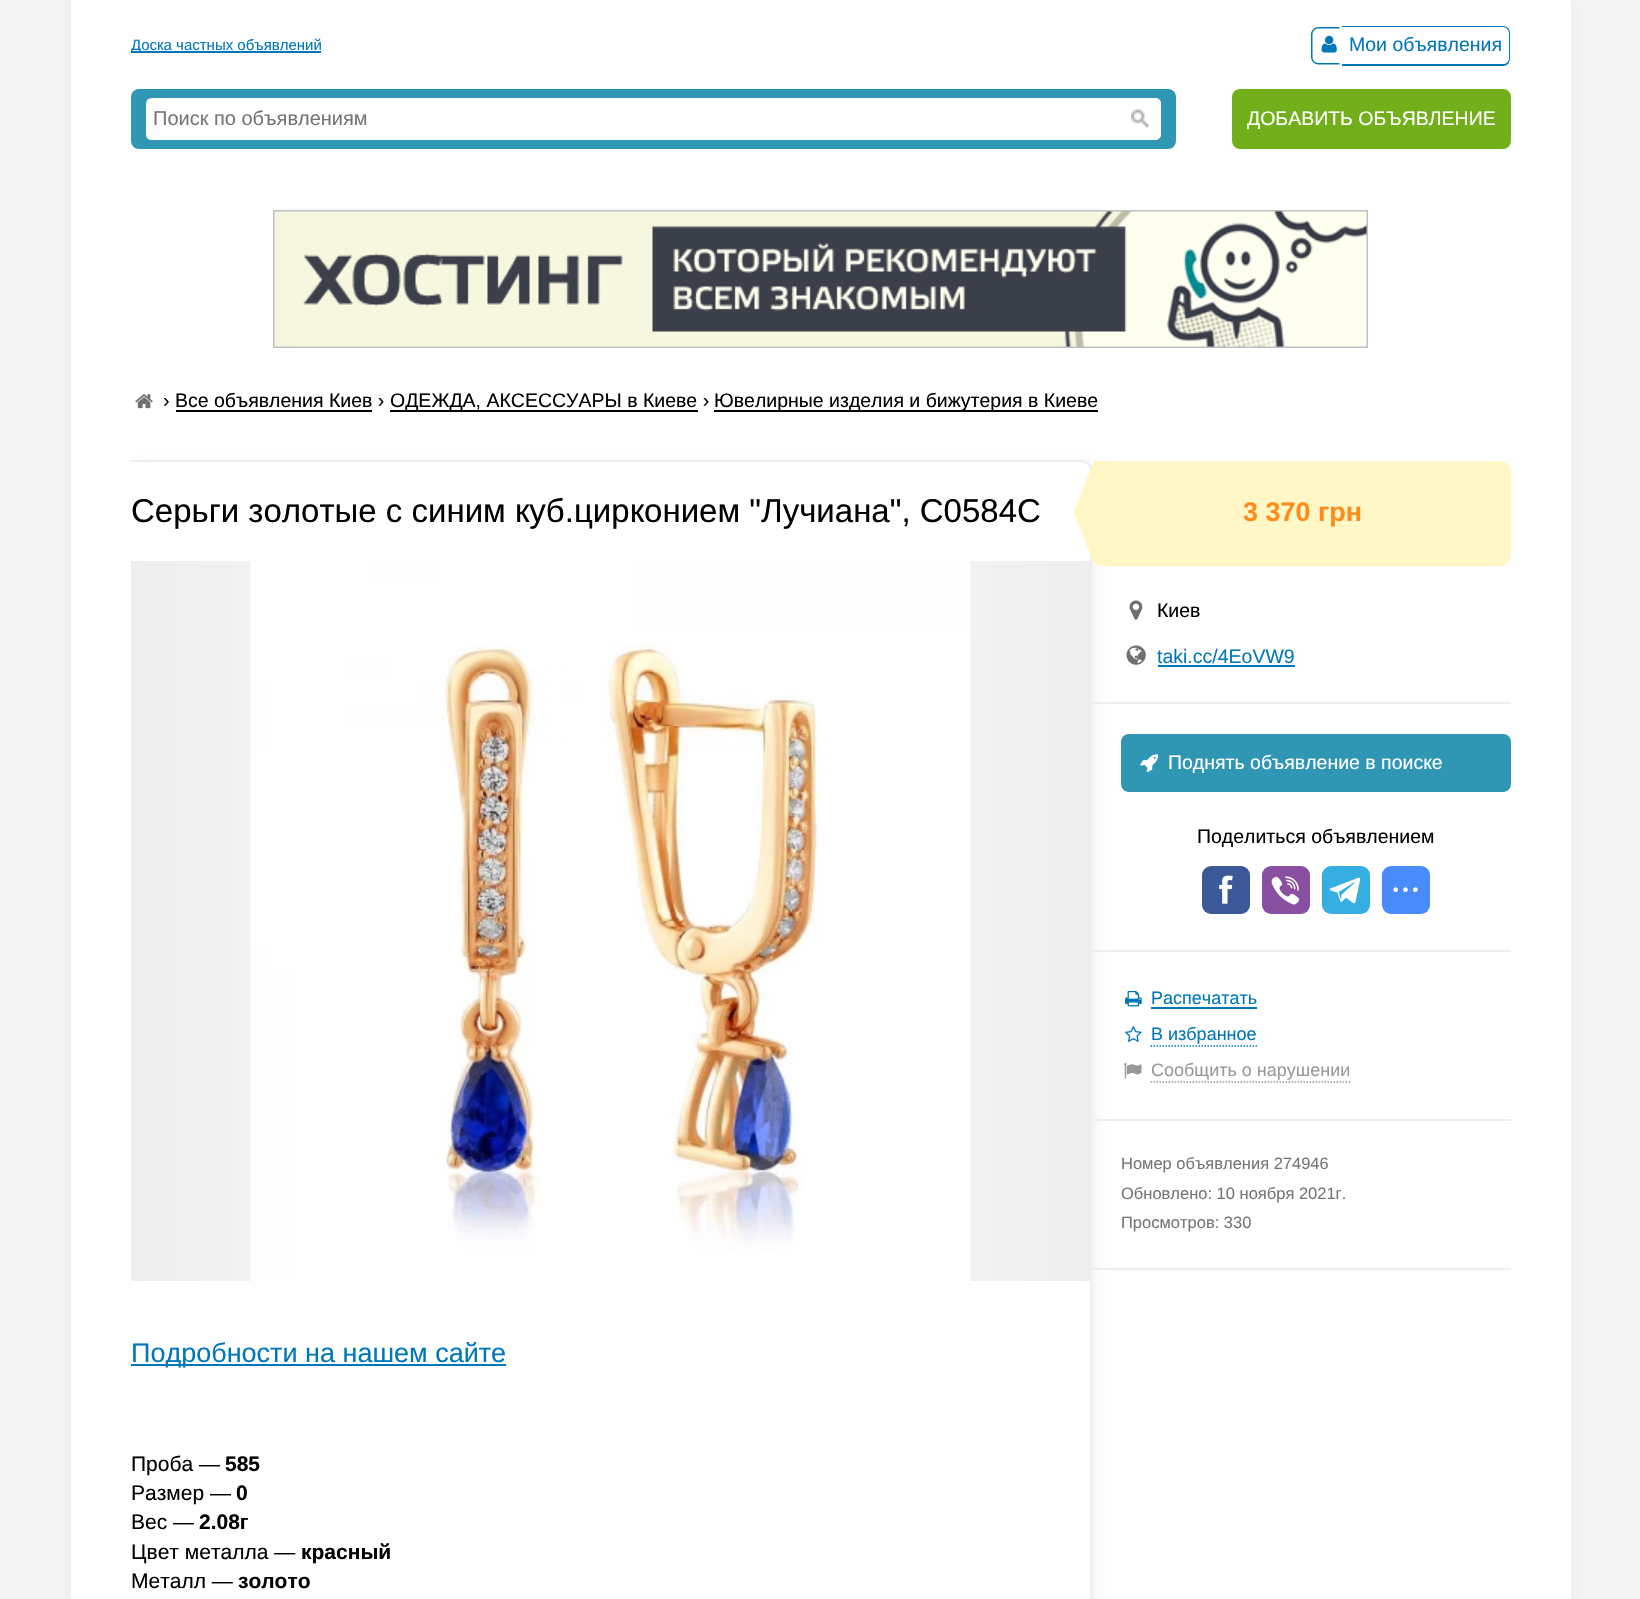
void draw(SkCanvas* canvas) {
	SkPaint paint;
	paint.setAntiAlias(true);
	auto svgPath = [&](const char* data, bool evenOdd = false) {
		SkPath result = *SkParsePath::FromSVGString(data);
		if (evenOdd) result.setFillType(SkPathFillType::kEvenOdd);
		return result;
	};
	canvas->clear(0xfff5f5f5);
	paint.setColor(0xffe8e8e8);
	paint.setMaskFilter(SkMaskFilter::MakeBlur(kNormal_SkBlurStyle, 7.5));
	canvas->drawRect(SkRect::MakeXYWH(71, 0, 1500, 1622), paint);
	paint.setMaskFilter(nullptr);
	paint.setColor(0xffffffff);
	canvas->drawRect(SkRect::MakeXYWH(71, 0, 1500, 1599), paint);
	paint.setColor(0xff0077bb);
	canvas->drawRect(SkRect::MakeXYWH(131, 51, 190, 2), paint);
	SkFont f1(fontMgr->matchFamilyStyle("Liberation Sans", SkFontStyle::Normal()), 15);
	f1.setSubpixel(true);
	canvas->drawString("Доска частных объявлений", 131, 50, f1, paint);
	canvas->drawPath(svgPath("M1318.5 27H1339.5V64.5H1318.5C1314.5 64.5 1311 61 1311 57V34.5C1311 30.5 1314.5 27 1318.5 27ZM1318.5 28.5H1339.5V63H1318.5C1315 63 1312.5 60.5 1312.5 57V34.5C1312.5 31 1315 28.5 1318.5 28.5Z", true), paint);
	canvas->drawPath(svgPath("M1342 26H1503C1507 26 1510 29 1510 33V58C1510 63 1507 66 1503 66H1342ZM1342 27H1503C1506 27 1509 30 1509 33V58C1509 62 1506 64 1503 64H1342Z", true), paint);
	canvas->drawImageRect(SkImages::DeferredFromEncodedData(SkData::MakeFromFileName("img1.png")), SkRect::MakeXYWH(1321, 35, 16, 18), SkSamplingOptions());
	SkFont f2(fontMgr->matchFamilyStyle("Liberation Sans", SkFontStyle::Normal()), 19.5);
	f2.setSubpixel(true);
	canvas->drawString("Мои объявления", 1349, 51, f2, paint);
	paint.setColor(0xff2f96b4);
	canvas->drawRoundRect(SkRect::MakeXYWH(131, 89, 1045, 60), 8, 8, paint);
	paint.setColor(0xffffffff);
	canvas->drawPath(svgPath("M152 99H1120V139H152C149 139 147 137 147 134V104C147 101 149 99 152 99Z"), paint);
	paint.setStroke(true);
	paint.setStrokeWidth(2);
	canvas->drawPath(svgPath("M152 99H1120V139H152C149 139 147 137 147 134V104C147 101 149 99 152 99Z"), paint);
	SkFont f3(fontMgr->matchFamilyStyle("Liberation Sans", SkFontStyle::Normal()), 20);
	f3.setSubpixel(true);
	paint.setStroke(false);
	paint.setColor(0xff757575);
	canvas->drawString("Поиск по объявлениям", 153, 125, f3, paint);
	paint.setColor(0xffffffff);
	canvas->drawPath(svgPath("M1121 98H1155C1158.5 98 1161 100.5 1161 104V134C1161 137.5 1158.5 140 1155 140H1121Z"), paint);
	canvas->drawImageRect(SkImages::DeferredFromEncodedData(SkData::MakeFromFileName("img2.png")), SkRect::MakeXYWH(1131, 109, 18, 19), SkSamplingOptions());
	canvas->drawPath(svgPath("M1120 98H1155C1158 98 1161 100 1161 104V134C1161 137 1158 140 1155 140H1120ZM1120 99H1155C1157 99 1160 101 1160 104V134C1160 136 1157 138 1155 138H1120Z", true), paint);
	paint.setColor(0xff73af1a);
	canvas->drawRoundRect(SkRect::MakeXYWH(1232, 89, 279, 60), 8, 8, paint);
	paint.setColor(0xffffffff);
	canvas->drawString("ДОБАВИТЬ ОБЪЯВЛЕНИЕ", 1247, 125, f2, paint);
	paint.setStroke(true);
	paint.setColor(0xffbdc0c6);
	canvas->drawRect(SkRect::MakeXYWH(274, 211, 1093, 136), paint);
	canvas->drawImageRect(SkImages::DeferredFromEncodedData(SkData::MakeFromFileName("img3.png")), SkRect::MakeXYWH(274, 211, 1093, 136), SkSamplingOptions());
	canvas->drawImageRect(SkImages::DeferredFromEncodedData(SkData::MakeFromFileName("img4.png")), SkRect::MakeXYWH(135, 394, 18, 15), SkSamplingOptions());
	paint.setStroke(false);
	paint.setColor(0xff000000);
	canvas->drawString("› Все объявления Киев ›", 163, 407, f2, paint);
	canvas->drawRect(SkRect::MakeXYWH(390, 410, 308, 2), paint);
	canvas->drawString("ОДЕЖДА, АКСЕССУАРЫ в Киеве ›", 390, 407, f2, paint);
	canvas->drawRect(SkRect::MakeXYWH(714, 410, 384, 2), paint);
	canvas->drawString("Ювелирные изделия и бижутерия в Киеве", 714, 407, f2, paint);
	canvas->drawRect(SkRect::MakeXYWH(176, 410, 196, 2), paint);
	canvas->save();
	canvas->clipPath(svgPath("M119 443H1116V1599H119ZM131 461H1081C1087 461 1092 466 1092 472V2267H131Z", true), true);
	paint.setColor(0xffe8e8e8);
	paint.setMaskFilter(SkMaskFilter::MakeBlur(kNormal_SkBlurStyle, 7.5));
	canvas->drawRoundRect(SkRect::MakeXYWH(143, 467, 949, 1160), 5, 5, paint);
	paint.setMaskFilter(nullptr);
	canvas->restore();
	paint.setColor(0xffeeeeee);
	canvas->drawPath(svgPath("M130 460H1082C1087 460 1092 465 1092 471V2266H130ZM130 462H1082C1086 462 1090 466 1090 471V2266H130Z", true), paint);
	SkFont f4(fontMgr->matchFamilyStyle("Liberation Sans", SkFontStyle::Normal()), 33);
	f4.setSubpixel(true);
	paint.setColor(0xff000000);
	canvas->drawString("Серьги золотые с синим куб.цирконием \"Лучиана\", С0584С", 131, 522, f4, paint);
	{
		const SkColor colors[] = {0xffeeeeee, 0xffffffff, 0xffeeeeee};
		const float stops[] = {0, 0.5, 1};
		const SkPoint ends[] = {{131, 921}, {1091, 921}};
		paint.setShader(SkGradientShader::MakeLinear(ends, colors, stops, 3, SkTileMode::kClamp));
		paint.setAlpha(255);
	}
	canvas->drawRect(SkRect::MakeXYWH(131, 561, 959, 720), paint);
	canvas->drawImageRect(SkImages::DeferredFromEncodedData(SkData::MakeFromFileName("img5.png")), SkRect::MakeXYWH(250, 561, 721, 720), SkSamplingOptions());
	paint.setShader(nullptr);
	paint.setColor(0xff0077bb);
	canvas->drawRect(SkRect::MakeXYWH(131, 1364, 375, 2), paint);
	SkFont f5(fontMgr->matchFamilyStyle("Liberation Sans", SkFontStyle::Normal()), 27);
	f5.setSubpixel(true);
	canvas->drawString("Подробности на нашем сайте", 131, 1362, f5, paint);
	SkFont f6(fontMgr->matchFamilyStyle("Liberation Sans", SkFontStyle::Normal()), 21);
	f6.setSubpixel(true);
	paint.setColor(0xff000000);
	canvas->drawString("Проба —", 131, 1471, f6, paint);
	SkFont f7(fontMgr->matchFamilyStyle("Liberation Sans", SkFontStyle::Bold()), 21);
	f7.setSubpixel(true);
	canvas->drawString("585", 225, 1471, f7, paint);
	canvas->drawString("Размер —", 131, 1500, f6, paint);
	canvas->drawString("0", 236, 1500, f7, paint);
	canvas->drawString("Вес —", 131, 1529, f6, paint);
	canvas->drawString("2.08г", 199, 1529, f7, paint);
	canvas->drawString("Цвет металла —", 131, 1559, f6, paint);
	canvas->drawString("красный", 301, 1559, f7, paint);
	canvas->drawString("Металл —", 131, 1588, f6, paint);
	canvas->drawString("золото", 238, 1588, f7, paint);
	paint.setColor(0xfffff7c6);
	canvas->drawPath(svgPath("M1095 461H1500C1506 461 1511 466 1511 472V555C1511 561 1506 566 1500 566H1095Z"), paint);
	canvas->drawImageRect(SkImages::DeferredFromEncodedData(SkData::MakeFromFileName("img6.png")), SkRect::MakeXYWH(1074, 460, 21, 104), SkSamplingOptions());
	SkFont f8(fontMgr->matchFamilyStyle("Liberation Sans", SkFontStyle::Bold()), 27);
	f8.setSubpixel(true);
	paint.setColor(0xffff8b19);
	canvas->drawString("3 370 грн", 1243, 521, f8, paint);
	canvas->drawImageRect(SkImages::DeferredFromEncodedData(SkData::MakeFromFileName("img7.png")), SkRect::MakeXYWH(1129, 600, 14, 20), SkSamplingOptions());
	paint.setColor(0xff000000);
	canvas->drawString("Киев", 1157, 617, f2, paint);
	canvas->drawImageRect(SkImages::DeferredFromEncodedData(SkData::MakeFromFileName("img8.png")), SkRect::MakeXYWH(1126, 645, 20, 20), SkSamplingOptions());
	paint.setColor(0xff0077bb);
	canvas->drawString("taki.cc/4EoVW9", 1157, 663, f2, paint);
	canvas->drawRect(SkRect::MakeXYWH(1158, 665, 137, 2), paint);
	paint.setColor(0xffeeeeee);
	canvas->drawRect(SkRect::MakeXYWH(1091, 702, 420, 2), paint);
	paint.setColor(0xff2f96b4);
	canvas->drawRoundRect(SkRect::MakeXYWH(1121, 734, 390, 58), 8, 8, paint);
	canvas->drawImageRect(SkImages::DeferredFromEncodedData(SkData::MakeFromFileName("img9.png")), SkRect::MakeXYWH(1140, 754, 19, 18), SkSamplingOptions());
	paint.setColor(0xffffffff);
	canvas->drawString("Поднять объявление в поиске", 1168, 769, f2, paint);
	paint.setColor(0xff000000);
	canvas->drawString("Поделиться объявлением", 1197, 843, f2, paint);
	paint.setColor(0xff3b5998);
	canvas->drawRoundRect(SkRect::MakeXYWH(1202, 866, 48, 48), 9, 9, paint);
	canvas->drawImageRect(SkImages::DeferredFromEncodedData(SkData::MakeFromFileName("img10.png")), SkRect::MakeXYWH(1219, 875, 14, 29), SkSamplingOptions());
	paint.setColor(0xff8950a1);
	canvas->drawRoundRect(SkRect::MakeXYWH(1262, 866, 48, 48), 9, 9, paint);
	canvas->drawImageRect(SkImages::DeferredFromEncodedData(SkData::MakeFromFileName("img11.png")), SkRect::MakeXYWH(1271, 876, 29, 29), SkSamplingOptions());
	paint.setColor(0xff37aee2);
	canvas->drawRoundRect(SkRect::MakeXYWH(1322, 866, 48, 48), 9, 9, paint);
	canvas->drawImageRect(SkImages::DeferredFromEncodedData(SkData::MakeFromFileName("img12.png")), SkRect::MakeXYWH(1329, 877, 32, 27), SkSamplingOptions());
	paint.setColor(0xff498bfa);
	canvas->drawRoundRect(SkRect::MakeXYWH(1382, 866, 48, 48), 9, 9, paint);
	canvas->drawImageRect(SkImages::DeferredFromEncodedData(SkData::MakeFromFileName("img13.png")), SkRect::MakeXYWH(1393, 887, 25, 5), SkSamplingOptions());
	paint.setColor(0xffeeeeee);
	canvas->drawRect(SkRect::MakeXYWH(1091, 950, 420, 2), paint);
	canvas->drawImageRect(SkImages::DeferredFromEncodedData(SkData::MakeFromFileName("img14.png")), SkRect::MakeXYWH(1125, 991, 17, 16), SkSamplingOptions());
	SkFont f9(fontMgr->matchFamilyStyle("Liberation Sans", SkFontStyle::Normal()), 18);
	f9.setSubpixel(true);
	paint.setColor(0xff0077bb);
	canvas->drawString("Распечатать", 1151, 1004, f9, paint);
	canvas->drawRect(SkRect::MakeXYWH(1151, 1007, 106, 2), paint);
	canvas->drawImageRect(SkImages::DeferredFromEncodedData(SkData::MakeFromFileName("img15.png")), SkRect::MakeXYWH(1125, 1026, 17, 16), SkSamplingOptions());
	canvas->drawString("В избранное", 1151, 1040, f9, paint);
	paint.setStroke(true);
	paint.setStrokeWidth(1.5);
	paint.setPathEffect(SkDashPathEffect::Make({{1.5f, 1.5f}}, 0));
	canvas->drawPath(svgPath("M1150.5 1046H1257"), paint);
	paint.setPathEffect(nullptr);
	canvas->drawImageRect(SkImages::DeferredFromEncodedData(SkData::MakeFromFileName("img16.png")), SkRect::MakeXYWH(1124, 1063, 18, 16), SkSamplingOptions());
	paint.setStroke(false);
	paint.setColor(0xff999999);
	canvas->drawString("Сообщить о нарушении", 1151, 1076, f9, paint);
	paint.setStroke(true);
	paint.setPathEffect(SkDashPathEffect::Make({{1.5f, 1.5f}}, 0));
	canvas->drawPath(svgPath("M1150.5 1082H1350"), paint);
	paint.setPathEffect(nullptr);
	paint.setStroke(false);
	paint.setColor(0xffeeeeee);
	canvas->drawRect(SkRect::MakeXYWH(1091, 1119, 420, 2), paint);
	SkFont f10(fontMgr->matchFamilyStyle("Liberation Sans", SkFontStyle::Normal()), 16.5);
	f10.setSubpixel(true);
	paint.setColor(0xff757575);
	canvas->drawString("Номер объявления 274946", 1121, 1169, f10, paint);
	canvas->drawString("Обновлено: 10 ноября 2021г.", 1121, 1199, f10, paint);
	canvas->drawString("Просмотров: 330", 1121, 1228, f10, paint);
	paint.setColor(0xffeeeeee);
	canvas->drawRect(SkRect::MakeXYWH(1091, 1268, 420, 2), paint);
}
